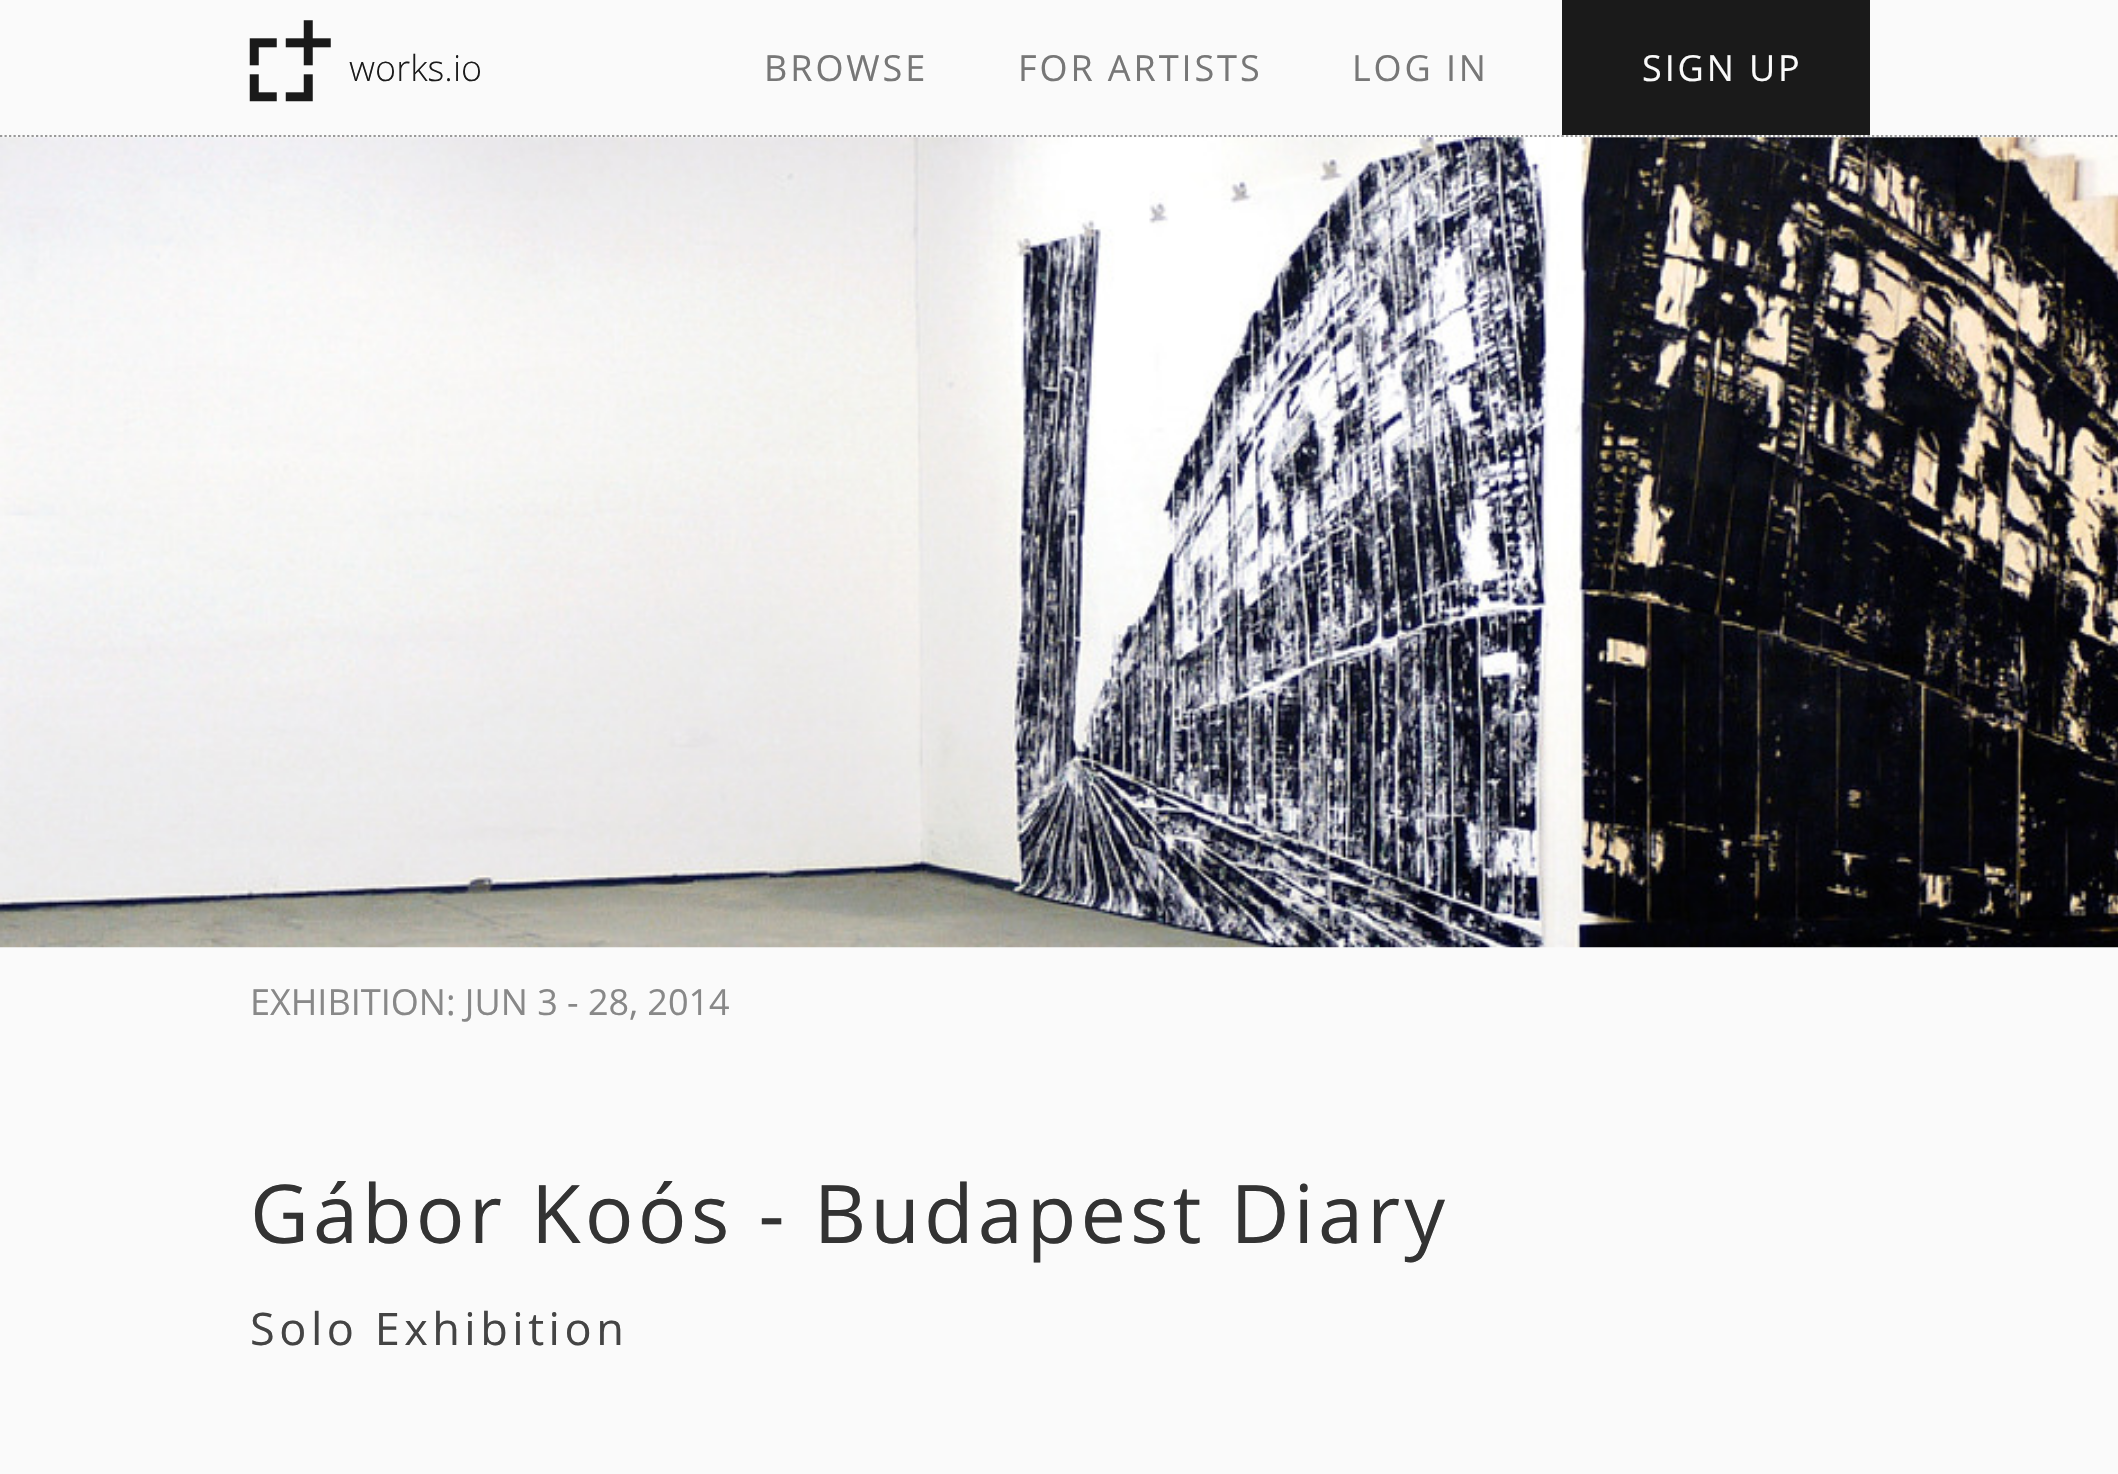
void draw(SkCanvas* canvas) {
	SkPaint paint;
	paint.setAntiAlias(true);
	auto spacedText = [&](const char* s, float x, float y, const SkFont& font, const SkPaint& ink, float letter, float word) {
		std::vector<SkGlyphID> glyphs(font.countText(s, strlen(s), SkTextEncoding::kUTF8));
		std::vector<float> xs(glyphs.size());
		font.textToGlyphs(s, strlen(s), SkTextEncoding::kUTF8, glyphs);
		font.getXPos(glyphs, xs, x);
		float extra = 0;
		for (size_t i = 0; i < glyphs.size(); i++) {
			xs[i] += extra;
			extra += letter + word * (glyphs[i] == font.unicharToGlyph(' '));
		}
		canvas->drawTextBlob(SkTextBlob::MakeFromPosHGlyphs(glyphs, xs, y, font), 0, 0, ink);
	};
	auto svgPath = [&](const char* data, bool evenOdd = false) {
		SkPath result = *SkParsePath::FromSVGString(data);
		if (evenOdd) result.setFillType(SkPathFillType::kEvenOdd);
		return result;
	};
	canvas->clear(0xfffafafa);
	paint.setStroke(true);
	paint.setStrokeWidth(2.2);
	paint.setColor(0xff999999);
	paint.setPathEffect(SkDashPathEffect::Make({{2.25f, 2.25f}}, 0));
	canvas->drawPath(svgPath("M0 136H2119.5"), paint);
	paint.setPathEffect(nullptr);
	canvas->drawImageRect(SkImages::DeferredFromEncodedData(SkData::MakeFromFileName("img1.png")), SkRect::MakeXYWH(249, 20, 82, 82), SkSamplingOptions());
	SkFont f1(fontMgr->matchFamilyStyle("Open Sans", SkFontStyle(300, SkFontStyle::kNormal_Width, SkFontStyle::kUpright_Slant)), 36);
	f1.setSubpixel(true);
	paint.setStroke(false);
	paint.setColor(0xff1a1a1a);
	canvas->drawString("works.io", 349, 81, f1, paint);
	SkFont f2(fontMgr->matchFamilyStyle("Open Sans", SkFontStyle::Normal()), 36);
	f2.setSubpixel(true);
	paint.setColor(0xff777777);
	spacedText("BROWSE", 764, 81, f2, paint, 2.9, 0);
	spacedText("FOR ARTISTS", 1018, 81, f2, paint, 2.9, 0);
	spacedText("LOG IN", 1352, 81, f2, paint, 2.9, 0);
	paint.setColor(0xff1a1a1a);
	canvas->drawRect(SkRect::MakeXYWH(1562, 0, 308, 135), paint);
	paint.setColor(0xfffafafa);
	spacedText("SIGN UP", 1642, 81, f2, paint, 2.9, 0);
	canvas->drawImageRect(SkImages::DeferredFromEncodedData(SkData::MakeFromFileName("img2.png")), SkRect::MakeXYWH(0, 137, 2118, 811), SkSamplingOptions());
	paint.setColor(0xff888888);
	canvas->drawString("EXHIBITION: JUN 3 - 28, 2014", 250, 1015, f2, paint);
	SkFont f3(fontMgr->matchFamilyStyle("Open Sans", SkFontStyle::Normal()), 81);
	f3.setSubpixel(true);
	paint.setColor(0xff333333);
	spacedText("Gábor Koós - Budapest Diary", 250, 1243, f3, paint, 4.05, 0);
	SkFont f4(fontMgr->matchFamilyStyle("Open Sans", SkFontStyle::Normal()), 45);
	f4.setSubpixel(true);
	paint.setColor(0xff444444);
	spacedText("Solo Exhibition", 250, 1345, f4, paint, 4.5, 0);
}
